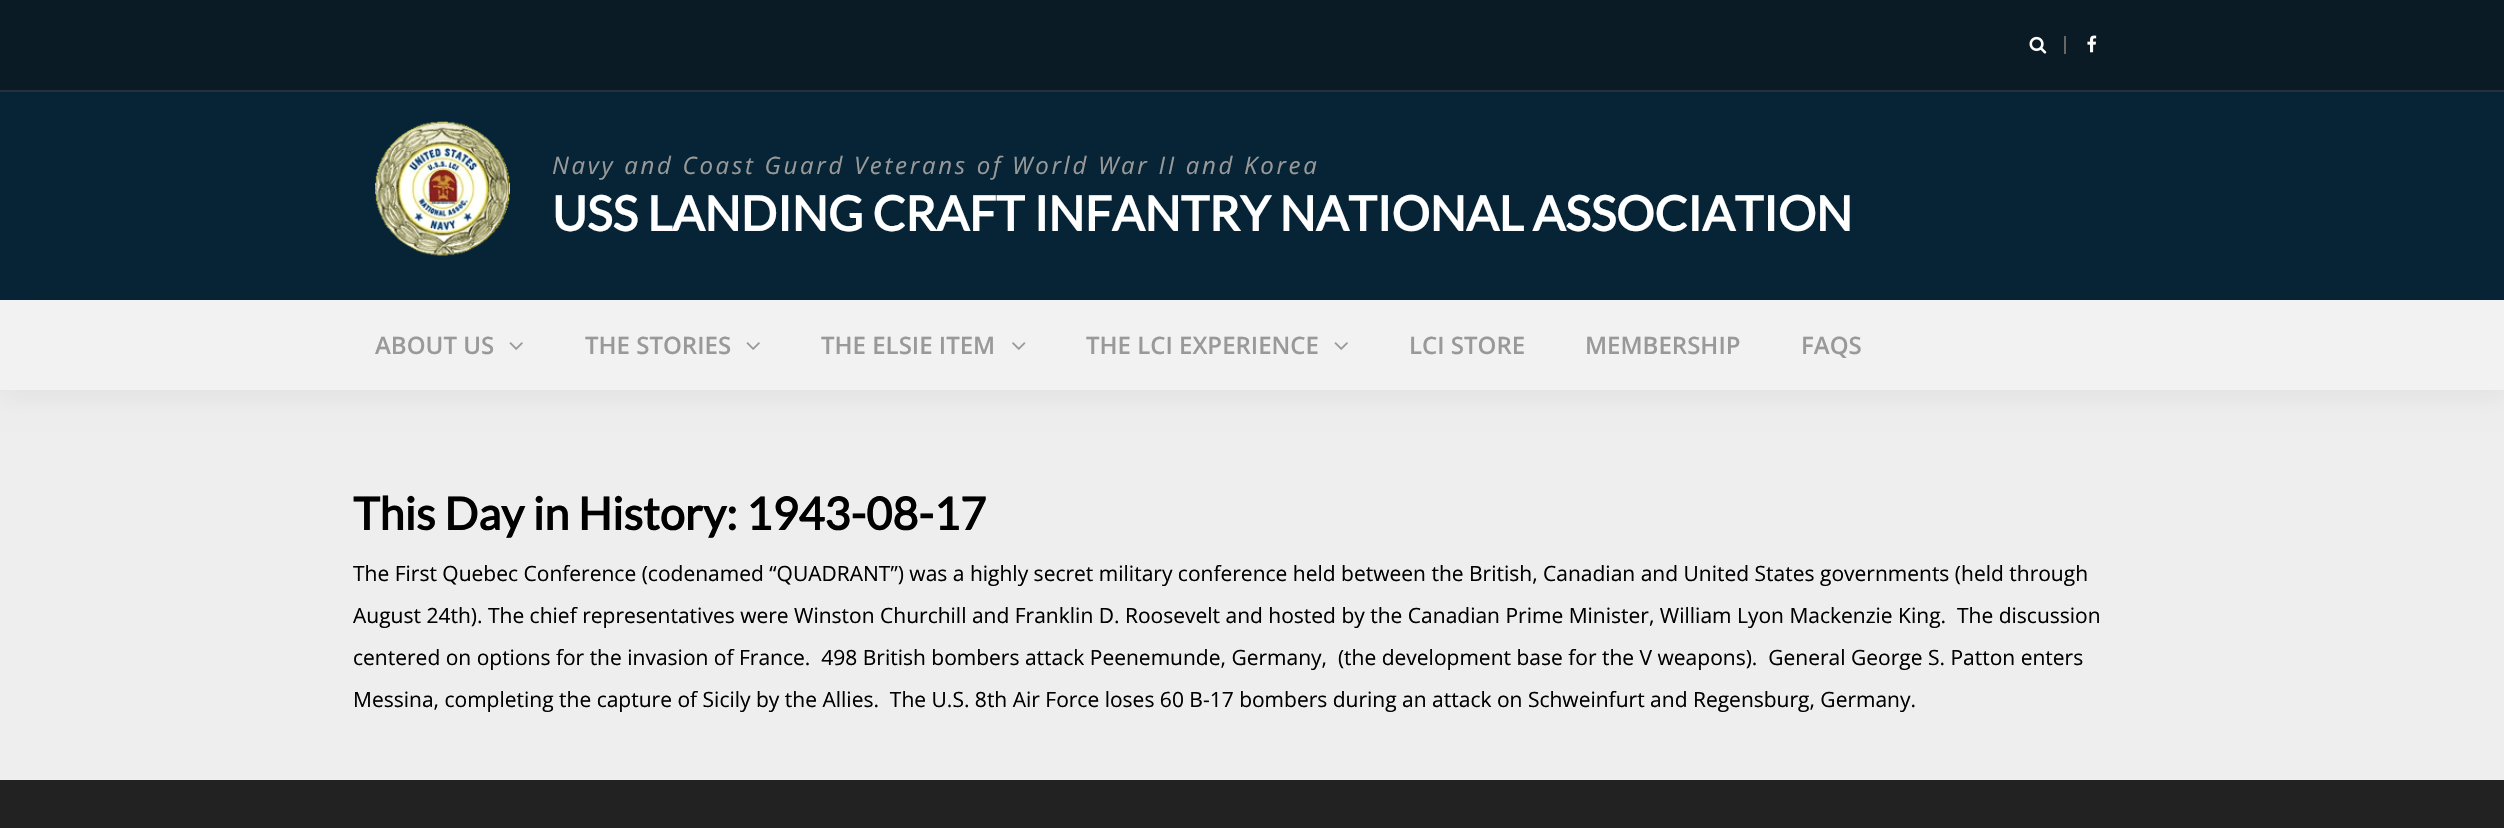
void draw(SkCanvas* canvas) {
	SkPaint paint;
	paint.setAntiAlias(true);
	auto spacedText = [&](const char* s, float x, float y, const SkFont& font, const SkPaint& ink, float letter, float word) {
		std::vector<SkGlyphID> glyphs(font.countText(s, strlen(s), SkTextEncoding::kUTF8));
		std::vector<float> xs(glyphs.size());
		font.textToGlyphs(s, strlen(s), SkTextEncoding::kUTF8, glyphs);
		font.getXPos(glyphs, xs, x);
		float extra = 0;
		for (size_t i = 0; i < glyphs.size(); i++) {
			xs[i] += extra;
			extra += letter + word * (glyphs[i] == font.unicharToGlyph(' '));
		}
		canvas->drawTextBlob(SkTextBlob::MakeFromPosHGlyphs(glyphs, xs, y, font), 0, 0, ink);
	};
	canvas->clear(0xffeeeeee);
	paint.setColor(0xff0b1b25);
	canvas->drawRect(SkRect::MakeXYWH(0, 0, 2504, 90), paint);
	paint.setColor(0xff23323b);
	canvas->drawRect(SkRect::MakeXYWH(0, 90, 2504, 2), paint);
	paint.setColor(0xff666666);
	canvas->drawRect(SkRect::MakeXYWH(2064, 36, 2, 18), paint);
	canvas->drawImageRect(SkImages::DeferredFromEncodedData(SkData::MakeFromFileName("img1.png")), SkRect::MakeXYWH(2029, 36, 18, 18), SkSamplingOptions());
	canvas->drawImageRect(SkImages::DeferredFromEncodedData(SkData::MakeFromFileName("img2.png")), SkRect::MakeXYWH(2087, 35, 10, 18), SkSamplingOptions());
	paint.setColor(0xff062435);
	canvas->drawRect(SkRect::MakeXYWH(0, 92, 2504, 208), paint);
	canvas->drawImageRect(SkImages::DeferredFromEncodedData(SkData::MakeFromFileName("img3.png")), SkRect::MakeXYWH(375, 121, 135, 135), SkSamplingOptions());
	SkFont f1(fontMgr->matchFamilyStyle("Open Sans", SkFontStyle::Italic()), 24);
	f1.setSubpixel(true);
	paint.setColor(0xff999999);
	spacedText("Navy and Coast Guard Veterans of World War II and Korea", 552, 174, f1, paint, 2.7, 0);
	SkFont f2(fontMgr->matchFamilyStyle("Lato", SkFontStyle::Bold()), 48);
	f2.setSubpixel(true);
	paint.setColor(0xffffffff);
	canvas->drawString("USS LANDING CRAFT INFANTRY NATIONAL ASSOCIATION", 552, 231, f2, paint);
	paint.setColor(0x0d000000);
	paint.setMaskFilter(SkMaskFilter::MakeBlur(kNormal_SkBlurStyle, 11));
	canvas->drawRect(SkRect::MakeXYWH(0, 308, 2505, 90), paint);
	paint.setMaskFilter(nullptr);
	paint.setColor(0xfff2f2f2);
	canvas->drawRect(SkRect::MakeXYWH(0, 300, 2504, 90), paint);
	SkFont f3(fontMgr->matchFamilyStyle("Open Sans", SkFontStyle(600, SkFontStyle::kNormal_Width, SkFontStyle::kUpright_Slant)), 24);
	f3.setSubpixel(true);
	paint.setColor(0xff999999);
	canvas->drawString("ABOUT US", 375, 354, f3, paint);
	canvas->drawImageRect(SkImages::DeferredFromEncodedData(SkData::MakeFromFileName("img4.png")), SkRect::MakeXYWH(509, 342, 14, 8), SkSamplingOptions());
	canvas->drawString("THE STORIES", 585, 354, f3, paint);
	canvas->drawImageRect(SkImages::DeferredFromEncodedData(SkData::MakeFromFileName("img4.png")), SkRect::MakeXYWH(746, 342, 14, 8), SkSamplingOptions());
	canvas->drawString("THE ELSIE ITEM", 821, 354, f3, paint);
	canvas->drawImageRect(SkImages::DeferredFromEncodedData(SkData::MakeFromFileName("img5.png")), SkRect::MakeXYWH(1012, 342, 14, 8), SkSamplingOptions());
	canvas->drawString("THE LCI EXPERIENCE", 1086, 354, f3, paint);
	canvas->drawImageRect(SkImages::DeferredFromEncodedData(SkData::MakeFromFileName("img4.png")), SkRect::MakeXYWH(1334, 342, 14, 8), SkSamplingOptions());
	canvas->drawString("LCI STORE", 1409, 354, f3, paint);
	canvas->drawString("MEMBERSHIP", 1585, 354, f3, paint);
	canvas->drawString("FAQS", 1801, 354, f3, paint);
	SkFont f4(fontMgr->matchFamilyStyle("Lato", SkFontStyle::Bold()), 45);
	f4.setSubpixel(true);
	paint.setColor(0xff000000);
	canvas->drawString("This Day in History: 1943-08-17", 353, 530, f4, paint);
	SkFont f5(fontMgr->matchFamilyStyle("Open Sans", SkFontStyle::Normal()), 21);
	f5.setSubpixel(true);
	canvas->drawString("The First Quebec Conference (codenamed “QUADRANT”) was a highly secret military conference held between the British, Canadian and United States governments (held through", 353, 581, f5, paint);
	canvas->drawString("August 24th). The chief representatives were Winston Churchill and Franklin D. Roosevelt and hosted by the Canadian Prime Minister, William Lyon Mackenzie King.  The discussion", 353, 623, f5, paint);
	canvas->drawString("centered on options for the invasion of France.  498 British bombers attack Peenemunde, Germany,  (the development base for the V weapons).  General George S. Patton enters", 353, 665, f5, paint);
	canvas->drawString("Messina, completing the capture of Sicily by the Allies.  The U.S. 8th Air Force loses 60 B-17 bombers during an attack on Schweinfurt and Regensburg, Germany.", 353, 707, f5, paint);
	paint.setColor(0xff222222);
	canvas->drawRect(SkRect::MakeXYWH(0, 780, 2504, 48), paint);
}
